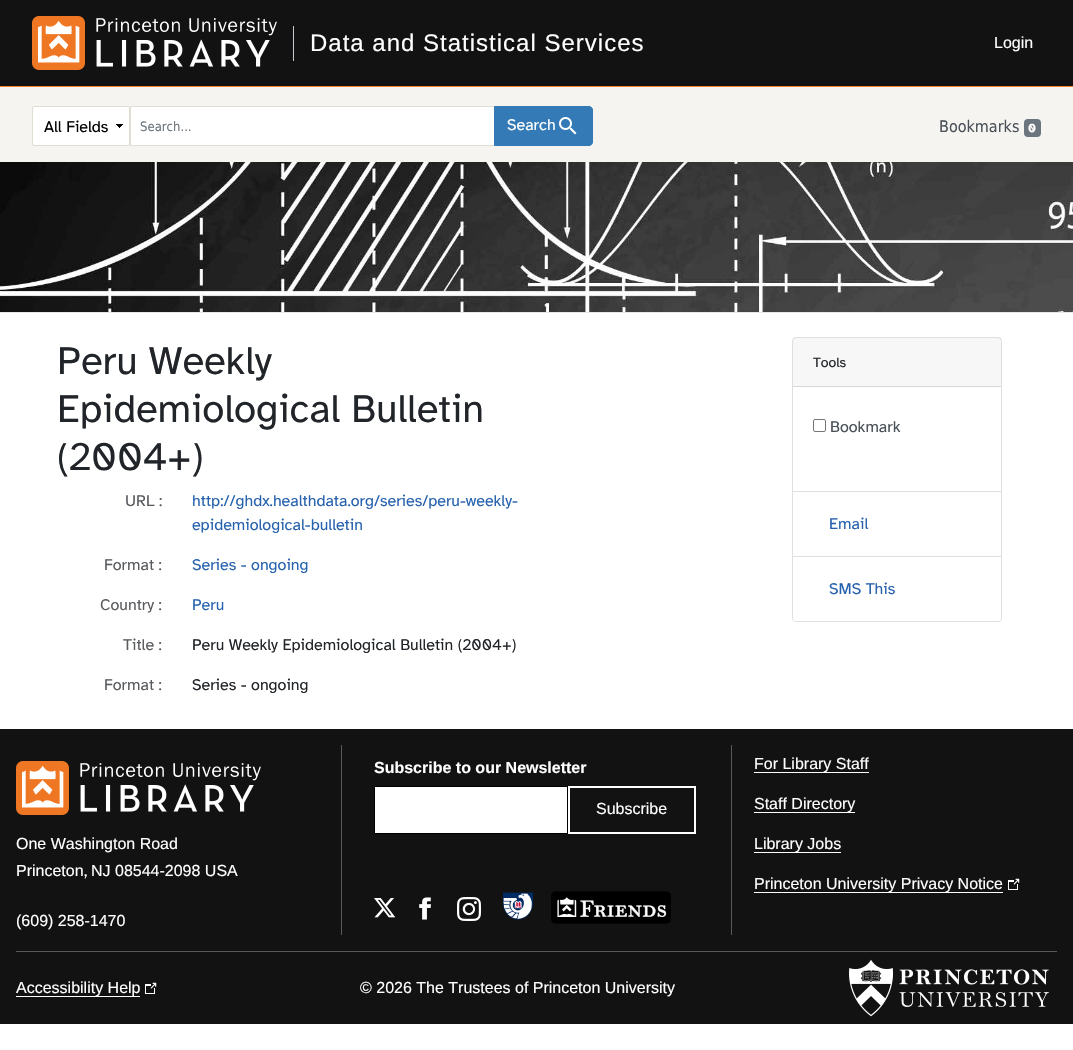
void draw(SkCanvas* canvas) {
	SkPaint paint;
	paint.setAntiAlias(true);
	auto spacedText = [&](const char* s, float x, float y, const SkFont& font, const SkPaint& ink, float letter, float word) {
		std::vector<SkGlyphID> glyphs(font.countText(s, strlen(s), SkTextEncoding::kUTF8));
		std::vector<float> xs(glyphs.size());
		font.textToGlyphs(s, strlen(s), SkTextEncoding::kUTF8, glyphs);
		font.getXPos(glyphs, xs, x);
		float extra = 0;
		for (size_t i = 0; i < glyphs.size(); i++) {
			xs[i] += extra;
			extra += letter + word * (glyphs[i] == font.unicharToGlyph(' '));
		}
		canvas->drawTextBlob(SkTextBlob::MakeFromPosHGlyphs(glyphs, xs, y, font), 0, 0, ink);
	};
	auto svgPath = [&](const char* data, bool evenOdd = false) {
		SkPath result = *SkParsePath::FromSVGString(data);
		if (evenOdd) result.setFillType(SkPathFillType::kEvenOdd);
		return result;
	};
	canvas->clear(0xffffffff);
	paint.setColor(0xff121212);
	canvas->drawRect(SkRect::MakeXYWH(0, 0, 1073, 86), paint);
	paint.setColor(0xfff58025);
	canvas->drawRect(SkRect::MakeXYWH(0, 86, 1073, 1), paint);
	canvas->drawImageRect(SkImages::DeferredFromEncodedData(SkData::MakeFromFileName("img1.png")), SkRect::MakeXYWH(32, 16, 245, 54), SkSamplingOptions());
	paint.setColor(0xffc5c8ce);
	canvas->drawRect(SkRect::MakeXYWH(293, 26, 1, 35), paint);
	SkFont f1(fontMgr->matchFamilyStyle("Liberation Sans", SkFontStyle::Normal()), 24);
	f1.setSubpixel(true);
	paint.setColor(0xffffffff);
	spacedText("Data and Statistical Services", 310, 51, f1, paint, 1, 0);
	SkFont f2(fontMgr->matchFamilyStyle("Liberation Sans", SkFontStyle::Normal()), 16);
	f2.setSubpixel(true);
	canvas->drawString("Login", 994, 48, f2, paint);
	paint.setColor(0xfff5f4f1);
	canvas->drawRect(SkRect::MakeXYWH(0, 87, 1073, 75), paint);
	paint.setColor(0xffeae8e2);
	canvas->drawRect(SkRect::MakeXYWH(0, 312, 1073, 1), paint);
	paint.setColor(0xffffffff);
	canvas->drawRoundRect(SkRect::MakeXYWH(33, 107, 96, 38), 1, 1, paint);
	canvas->drawImageRect(SkImages::DeferredFromEncodedData(SkData::MakeFromFileName("img2.png")), SkRect::MakeXYWH(116, 124, 7, 4), SkSamplingOptions());
	paint.setStroke(true);
	paint.setStrokeWidth(1);
	paint.setColor(0xffe0ddd3);
	canvas->drawRoundRect(SkRect::MakeXYWH(32.5, 106.5, 97, 39), 1.5, 1.5, paint);
	SkFont f3(fontMgr->matchFamilyStyle("Atkinson Hyperlegible", SkFontStyle::Normal()), 16);
	f3.setSubpixel(true);
	paint.setStroke(false);
	paint.setColor(0xff000000);
	canvas->drawString("All Fields", 44, 132, f3, paint);
	paint.setColor(0xffffffff);
	canvas->drawRect(SkRect::MakeXYWH(130.5, 106.5, 364, 39), paint);
	paint.setStroke(true);
	paint.setColor(0xffe0ddd3);
	canvas->drawRect(SkRect::MakeXYWH(130.5, 106.5, 364, 39), paint);
	SkFont f4(fontMgr->matchFamilyStyle("DejaVu Sans", SkFontStyle::Normal()), 13);
	f4.setSubpixel(true);
	paint.setStroke(false);
	paint.setColor(0xff6c757d);
	canvas->drawString("Search...", 140, 131, f4, paint);
	paint.setColor(0xff337ab7);
	canvas->drawPath(svgPath("M494.5 106.5H589C591 106.5 592.5 108 592.5 110V142C592.5 144 591 145.5 589 145.5H494.5Z"), paint);
	paint.setStroke(true);
	canvas->drawPath(svgPath("M494.5 106.5H589C591 106.5 592.5 108 592.5 110V142C592.5 144 591 145.5 589 145.5H494.5Z"), paint);
	paint.setStroke(false);
	paint.setColor(0xffffffff);
	canvas->drawString("Search", 507, 130, f3, paint);
	canvas->drawImageRect(SkImages::DeferredFromEncodedData(SkData::MakeFromFileName("img3.png")), SkRect::MakeXYWH(559, 117, 18, 18), SkSamplingOptions());
	SkFont f5(fontMgr->matchFamilyStyle("DejaVu Sans", SkFontStyle::Normal()), 16);
	f5.setSubpixel(true);
	paint.setColor(0xff495057);
	canvas->drawString("Bookmarks", 939, 132, f5, paint);
	paint.setColor(0xff6c757d);
	canvas->drawRoundRect(SkRect::MakeXYWH(1024, 119, 17, 18), 4, 4, paint);
	SkFont f6(fontMgr->matchFamilyStyle("Atkinson Hyperlegible", SkFontStyle::Bold()), 12);
	f6.setSubpixel(true);
	paint.setColor(0xffffffff);
	canvas->drawString("0", 1028, 132, f6, paint);
	canvas->drawImageRect(SkImages::DeferredFromEncodedData(SkData::MakeFromFileName("img4.png")), SkRect::MakeXYWH(0, 162, 1073, 150), SkSamplingOptions());
	SkFont f7(fontMgr->matchFamilyStyle("Atkinson Hyperlegible", SkFontStyle::Normal()), 40);
	f7.setSubpixel(true);
	paint.setColor(0xff212529);
	canvas->drawString("Peru Weekly", 57, 374, f7, paint);
	canvas->drawString("Epidemiological Bulletin", 57, 422, f7, paint);
	canvas->drawString("(2004+)", 57, 470, f7, paint);
	paint.setColor(0xff595c5f);
	canvas->drawString("URL :", 125, 506, f3, paint);
	paint.setColor(0xff2762ae);
	canvas->drawString("http://ghdx.healthdata.org/series/peru-weekly-", 192, 506, f3, paint);
	canvas->drawString("epidemiological-bulletin", 192, 530, f3, paint);
	paint.setColor(0xff595c5f);
	canvas->drawString("Format :", 104, 570, f3, paint);
	paint.setColor(0xff2762ae);
	canvas->drawString("Series - ongoing", 192, 570, f3, paint);
	paint.setColor(0xff595c5f);
	canvas->drawString("Country :", 100, 610, f3, paint);
	paint.setColor(0xff2762ae);
	canvas->drawString("Peru", 192, 610, f3, paint);
	paint.setColor(0xff595c5f);
	canvas->drawString("Title :", 123, 650, f3, paint);
	paint.setColor(0xff212529);
	canvas->drawString("Peru Weekly Epidemiological Bulletin (2004+)", 192, 650, f3, paint);
	paint.setColor(0xff595c5f);
	canvas->drawString("Format :", 104, 690, f3, paint);
	paint.setColor(0xff212529);
	canvas->drawString("Series - ongoing", 192, 690, f3, paint);
	paint.setStroke(true);
	paint.setColor(0xffdfdfdf);
	canvas->drawRoundRect(SkRect::MakeXYWH(792.5, 337.5, 209, 284), 3.5, 3.5, paint);
	paint.setStroke(false);
	paint.setColor(0x08000000);
	canvas->drawRect(SkRect::MakeXYWH(793, 338, 208, 48), paint);
	paint.setColor(0xffd8d8d8);
	canvas->drawRect(SkRect::MakeXYWH(793, 386, 208, 1), paint);
	SkFont f8(fontMgr->matchFamilyStyle("Atkinson Hyperlegible", SkFontStyle::Normal()), 14);
	f8.setSubpixel(true);
	paint.setColor(0xff212529);
	canvas->drawString("Tools", 813, 367, f8, paint);
	paint.setColor(0xffdfdfdf);
	canvas->drawRect(SkRect::MakeXYWH(793, 491, 208, 1), paint);
	paint.setStroke(true);
	paint.setColor(0xff767676);
	canvas->drawRoundRect(SkRect::MakeXYWH(813.5, 419.5, 12, 12), 1.5, 1.5, paint);
	paint.setStroke(false);
	paint.setColor(0xff495057);
	canvas->drawString("Bookmark", 830, 432, f3, paint);
	paint.setColor(0xffdfdfdf);
	canvas->drawRect(SkRect::MakeXYWH(793, 556, 208, 1), paint);
	paint.setColor(0xff2762ae);
	canvas->drawString("Email", 829, 529, f3, paint);
	paint.setColor(0xffffffff);
	canvas->drawPath(svgPath("M793 557H1001V618C1001 619.5 999.5 621 998 621H796C794.5 621 793 619.5 793 618Z"), paint);
	paint.setColor(0xff2762ae);
	canvas->drawString("SMS This", 829, 594, f3, paint);
	paint.setColor(0xff121212);
	canvas->drawRect(SkRect::MakeXYWH(0, 729, 1073, 295), paint);
	paint.setColor(0xff595959);
	canvas->drawRect(SkRect::MakeXYWH(731, 745, 1, 190), paint);
	SkFont f9(fontMgr->matchFamilyStyle("Liberation Sans", SkFontStyle::Bold()), 16);
	f9.setSubpixel(true);
	paint.setColor(0xffffffff);
	canvas->drawString("Subscribe to our Newsletter", 374, 773, f9, paint);
	canvas->drawRect(SkRect::MakeXYWH(374.5, 786.5, 193, 47), paint);
	paint.setStroke(true);
	paint.setColor(0xff000000);
	canvas->drawRect(SkRect::MakeXYWH(374.5, 786.5, 193, 47), paint);
	paint.setStrokeWidth(2);
	paint.setColor(0xffffffff);
	canvas->drawRect(SkRect::MakeXYWH(569, 787, 126, 46), paint);
	paint.setStroke(false);
	canvas->drawString("Subscribe", 596, 814, f2, paint);
	canvas->drawImageRect(SkImages::DeferredFromEncodedData(SkData::MakeFromFileName("img5.png")), SkRect::MakeXYWH(374, 898, 22, 20), SkSamplingOptions());
	canvas->drawImageRect(SkImages::DeferredFromEncodedData(SkData::MakeFromFileName("img6.png")), SkRect::MakeXYWH(419, 897, 12, 23), SkSamplingOptions());
	canvas->drawImageRect(SkImages::DeferredFromEncodedData(SkData::MakeFromFileName("img7.png")), SkRect::MakeXYWH(457, 897, 24, 24), SkSamplingOptions());
	canvas->drawImageRect(SkImages::DeferredFromEncodedData(SkData::MakeFromFileName("img8.png")), SkRect::MakeXYWH(503, 892, 30, 28), SkSamplingOptions());
	canvas->drawImageRect(SkImages::DeferredFromEncodedData(SkData::MakeFromFileName("img9.png")), SkRect::MakeXYWH(551, 891, 120, 33), SkSamplingOptions());
	canvas->drawRect(SkRect::MakeXYWH(754, 772, 115, 1), paint);
	canvas->drawString("For Library Staff", 754, 769, f2, paint);
	canvas->drawRect(SkRect::MakeXYWH(754, 812, 101, 1), paint);
	canvas->drawString("Staff Directory", 754, 809, f2, paint);
	canvas->drawRect(SkRect::MakeXYWH(754, 852, 87, 1), paint);
	canvas->drawString("Library Jobs", 754, 849, f2, paint);
	canvas->drawRect(SkRect::MakeXYWH(754, 892, 249, 1), paint);
	canvas->drawString("Princeton University Privacy Notice", 754, 889, f2, paint);
	canvas->drawImageRect(SkImages::DeferredFromEncodedData(SkData::MakeFromFileName("img10.png")), SkRect::MakeXYWH(1008, 878, 12, 12), SkSamplingOptions());
	paint.setColor(0xff595959);
	canvas->drawRect(SkRect::MakeXYWH(341, 745, 1, 190), paint);
	canvas->drawImageRect(SkImages::DeferredFromEncodedData(SkData::MakeFromFileName("img1.png")), SkRect::MakeXYWH(16, 761, 245, 54), SkSamplingOptions());
	paint.setColor(0xffffffff);
	canvas->drawString("One Washington Road", 16, 849, f2, paint);
	canvas->drawString("Princeton", 16, 876, f2, paint);
	canvas->drawString(",", 84, 876, f3, paint);
	canvas->drawString("NJ 08544-2098 USA", 91, 876, f2, paint);
	canvas->drawString("(609) 258-1470", 16, 926, f2, paint);
	paint.setColor(0xff595959);
	canvas->drawRect(SkRect::MakeXYWH(16, 951, 1041, 1), paint);
	paint.setColor(0xffffffff);
	canvas->drawRect(SkRect::MakeXYWH(16, 996, 124, 1), paint);
	canvas->drawString("Accessibility Help", 16, 993, f2, paint);
	canvas->drawImageRect(SkImages::DeferredFromEncodedData(SkData::MakeFromFileName("img10.png")), SkRect::MakeXYWH(145, 982, 12, 12), SkSamplingOptions());
	canvas->drawString("© 2026 The Trustees of Princeton University", 360, 993, f2, paint);
	canvas->drawImageRect(SkImages::DeferredFromEncodedData(SkData::MakeFromFileName("img11.png")), SkRect::MakeXYWH(849, 959, 200, 58), SkSamplingOptions());
}
